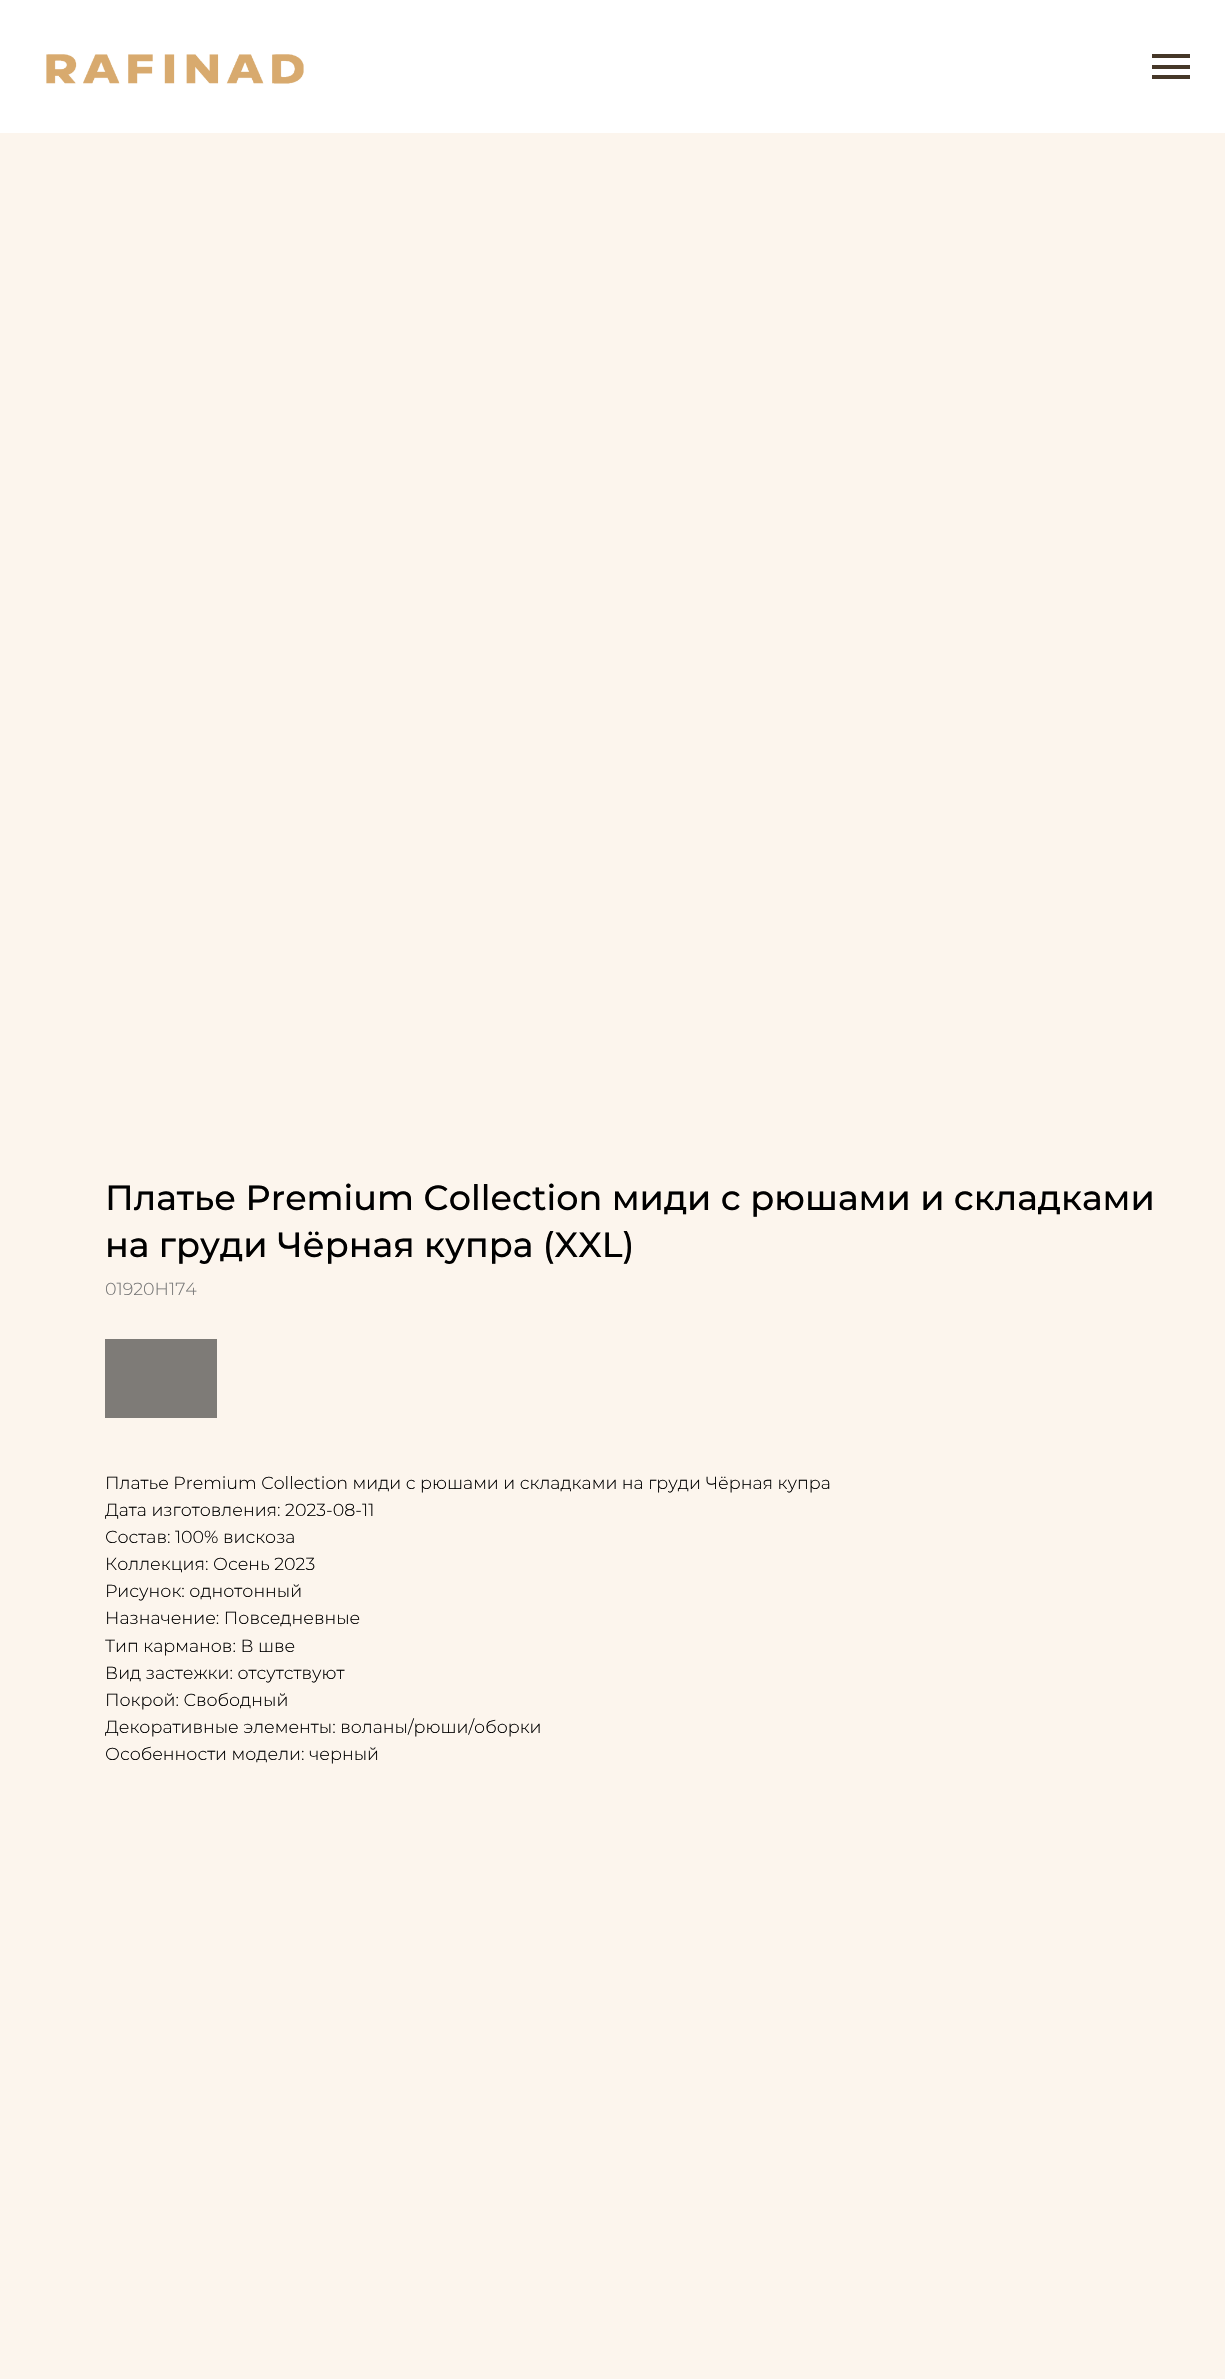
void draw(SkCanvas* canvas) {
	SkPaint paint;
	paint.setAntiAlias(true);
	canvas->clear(0xfffcf5ed);
	paint.setColor(0xffffffff);
	canvas->drawRect(SkRect::MakeXYWH(0, 0, 1225, 133), paint);
	canvas->drawImageRect(SkImages::DeferredFromEncodedData(SkData::MakeFromFileName("img1.png")), SkRect::MakeXYWH(46, 54, 258, 30), SkSamplingOptions());
	paint.setColor(0xff453728);
	canvas->drawRect(SkRect::MakeXYWH(1152, 54, 38, 4), paint);
	canvas->drawRect(SkRect::MakeXYWH(1152, 65, 38, 4), paint);
	canvas->drawRect(SkRect::MakeXYWH(1152, 75, 38, 4), paint);
	SkFont f1(fontMgr->matchFamilyStyle("Montserrat", SkFontStyle(500, SkFontStyle::kNormal_Width, SkFontStyle::kUpright_Slant)), 35);
	f1.setSubpixel(true);
	paint.setColor(0xff000000);
	canvas->drawString("Платье Premium Collection миди с рюшами и складками", 105, 1210, f1, paint);
	canvas->drawString("на груди Чёрная купра (XXL)", 105, 1257, f1, paint);
	SkFont f2(fontMgr->matchFamilyStyle("Montserrat", SkFontStyle(300, SkFontStyle::kNormal_Width, SkFontStyle::kUpright_Slant)), 17.5);
	f2.setSubpixel(true);
	paint.setColor(0xff777777);
	canvas->drawString("01920Н174", 105, 1295, f2, paint);
	paint.setColor(0xff7e7b77);
	canvas->drawRect(SkRect::MakeXYWH(105, 1339, 112, 79), paint);
	paint.setColor(0xff000000);
	canvas->drawString("Платье Premium Collection миди с рюшами и складками на груди Чёрная купра", 105, 1489, f2, paint);
	canvas->drawString("Дата изготовления: 2023-08-11", 105, 1516, f2, paint);
	canvas->drawString("Состав: 100% вискоза", 105, 1543, f2, paint);
	canvas->drawString("Коллекция: Осень 2023", 105, 1570, f2, paint);
	canvas->drawString("Рисунок: однотонный", 105, 1597, f2, paint);
	canvas->drawString("Назначение: Повседневные", 105, 1624, f2, paint);
	canvas->drawString("Тип карманов: В шве", 105, 1652, f2, paint);
	canvas->drawString("Вид застежки: отсутствуют", 105, 1679, f2, paint);
	canvas->drawString("Покрой: Свободный", 105, 1706, f2, paint);
	canvas->drawString("Декоративные элементы: воланы/рюши/оборки", 105, 1733, f2, paint);
	canvas->drawString("Особенности модели: черный", 105, 1760, f2, paint);
}
